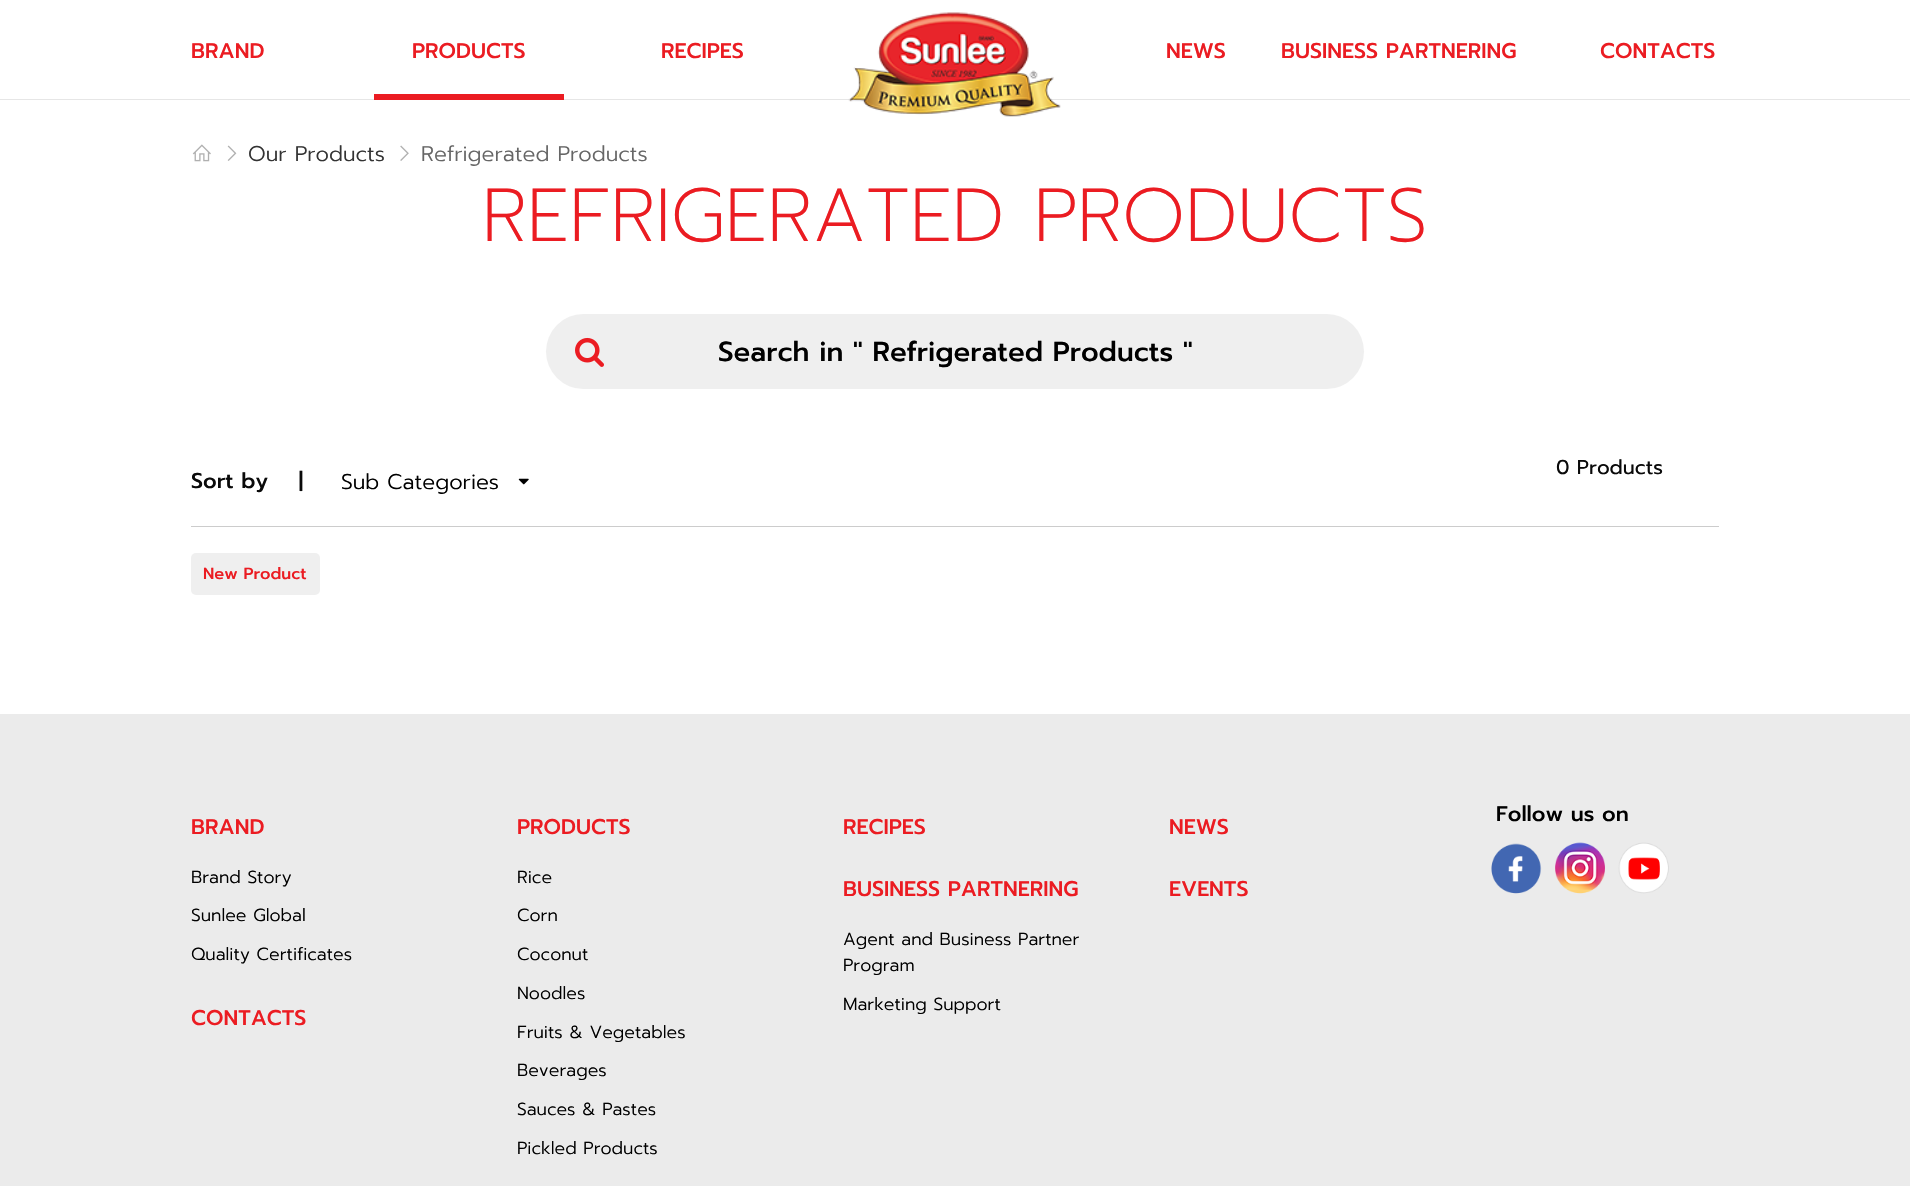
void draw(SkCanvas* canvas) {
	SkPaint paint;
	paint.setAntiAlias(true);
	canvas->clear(0xffffffff);
	paint.setColor(0xffe6e6e6);
	canvas->drawRect(SkRect::MakeXYWH(0, 99, 1910, 1), paint);
	canvas->drawImageRect(SkImages::DeferredFromEncodedData(SkData::MakeFromFileName("img1.png")), SkRect::MakeXYWH(848, 12, 213, 105), SkSamplingOptions());
	SkFont f1(fontMgr->matchFamilyStyle("Prompt", SkFontStyle(500, SkFontStyle::kNormal_Width, SkFontStyle::kUpright_Slant)), 21.25);
	f1.setSubpixel(true);
	paint.setColor(0xffeb1c22);
	canvas->drawString("BRAND", 191, 58, f1, paint);
	canvas->drawRect(SkRect::MakeXYWH(374, 94, 190, 6), paint);
	canvas->drawString("PRODUCTS", 412, 58, f1, paint);
	canvas->drawString("RECIPES", 661, 58, f1, paint);
	canvas->drawString("NEWS", 1166, 58, f1, paint);
	canvas->drawString("BUSINESS PARTNERING", 1281, 58, f1, paint);
	canvas->drawString("CONTACTS", 1600, 58, f1, paint);
	canvas->drawImageRect(SkImages::DeferredFromEncodedData(SkData::MakeFromFileName("img2.png")), SkRect::MakeXYWH(192, 144, 19, 18), SkSamplingOptions());
	canvas->drawImageRect(SkImages::DeferredFromEncodedData(SkData::MakeFromFileName("img3.png")), SkRect::MakeXYWH(227, 145, 10, 16), SkSamplingOptions());
	SkFont f2(fontMgr->matchFamilyStyle("Prompt", SkFontStyle(300, SkFontStyle::kNormal_Width, SkFontStyle::kUpright_Slant)), 21.25);
	f2.setSubpixel(true);
	paint.setColor(0xff333333);
	canvas->drawString("Our Products", 248, 161, f2, paint);
	canvas->drawImageRect(SkImages::DeferredFromEncodedData(SkData::MakeFromFileName("img4.png")), SkRect::MakeXYWH(400, 145, 9, 16), SkSamplingOptions());
	paint.setColor(0xff666666);
	canvas->drawString("Refrigerated Products", 421, 161, f2, paint);
	SkFont f3(fontMgr->matchFamilyStyle("Prompt", SkFontStyle(200, SkFontStyle::kNormal_Width, SkFontStyle::kUpright_Slant)), 75);
	f3.setSubpixel(true);
	paint.setColor(0xffeb1c22);
	canvas->drawString("REFRIGERATED PRODUCTS", 482, 241, f3, paint);
	paint.setColor(0xffefefef);
	canvas->drawRoundRect(SkRect::MakeXYWH(546, 314, 818, 75), 37.5, 37.5, paint);
	canvas->drawImageRect(SkImages::DeferredFromEncodedData(SkData::MakeFromFileName("img5.png")), SkRect::MakeXYWH(575, 337, 29, 30), SkSamplingOptions());
	SkFont f4(fontMgr->matchFamilyStyle("Prompt", SkFontStyle(500, SkFontStyle::kNormal_Width, SkFontStyle::kUpright_Slant)), 27.5);
	f4.setSubpixel(true);
	paint.setColor(0xff000000);
	canvas->drawString("Search in \" Refrigerated Products \"", 718, 361, f4, paint);
	SkFont f5(fontMgr->matchFamilyStyle("Prompt", SkFontStyle::Normal()), 20);
	f5.setSubpixel(true);
	paint.setColor(0xff0a0a0a);
	canvas->drawString("0 Products", 1556, 474, f5, paint);
	canvas->drawString("Sort by    |", 191, 488, f1, paint);
	paint.setColor(0xff000000);
	canvas->drawString("Sub Categories", 341, 489, f2, paint);
	canvas->drawImageRect(SkImages::DeferredFromEncodedData(SkData::MakeFromFileName("img6.png")), SkRect::MakeXYWH(518, 478, 11, 7), SkSamplingOptions());
	paint.setColor(0xffcccccc);
	canvas->drawRect(SkRect::MakeXYWH(191, 526, 1528, 1), paint);
	paint.setColor(0xffefefef);
	canvas->drawRoundRect(SkRect::MakeXYWH(191, 553, 129, 42), 5, 5, paint);
	SkFont f6(fontMgr->matchFamilyStyle("Prompt", SkFontStyle(500, SkFontStyle::kNormal_Width, SkFontStyle::kUpright_Slant)), 16.25);
	f6.setSubpixel(true);
	paint.setColor(0xffeb1c22);
	canvas->drawString("New Product", 203, 579, f6, paint);
	paint.setColor(0xffebebeb);
	canvas->drawRect(SkRect::MakeXYWH(0, 714, 1910, 472), paint);
	paint.setColor(0xff000000);
	canvas->drawString("Follow us on", 1496, 821, f1, paint);
	canvas->drawImageRect(SkImages::DeferredFromEncodedData(SkData::MakeFromFileName("img7.png")), SkRect::MakeXYWH(1491, 843, 51, 51), SkSamplingOptions());
	canvas->drawImageRect(SkImages::DeferredFromEncodedData(SkData::MakeFromFileName("img8.png")), SkRect::MakeXYWH(1555, 842, 50, 52), SkSamplingOptions());
	canvas->drawImageRect(SkImages::DeferredFromEncodedData(SkData::MakeFromFileName("img9.png")), SkRect::MakeXYWH(1618, 842, 51, 52), SkSamplingOptions());
	paint.setColor(0xffeb1c22);
	canvas->drawString("BRAND", 191, 834, f1, paint);
	SkFont f7(fontMgr->matchFamilyStyle("Prompt", SkFontStyle(300, SkFontStyle::kNormal_Width, SkFontStyle::kUpright_Slant)), 17.5);
	f7.setSubpixel(true);
	paint.setColor(0xff000000);
	canvas->drawString("Brand Story", 191, 883, f7, paint);
	canvas->drawString("Sunlee Global", 191, 921, f7, paint);
	canvas->drawString("Quality Certificates", 191, 960, f7, paint);
	paint.setColor(0xffeb1c22);
	canvas->drawString("CONTACTS", 191, 1025, f1, paint);
	canvas->drawString("PRODUCTS", 517, 834, f1, paint);
	paint.setColor(0xff000000);
	canvas->drawString("Rice", 517, 883, f7, paint);
	canvas->drawString("Corn", 517, 921, f7, paint);
	canvas->drawString("Coconut", 517, 960, f7, paint);
	canvas->drawString("Noodles", 517, 999, f7, paint);
	canvas->drawString("Fruits & Vegetables", 517, 1038, f7, paint);
	canvas->drawString("Beverages", 517, 1076, f7, paint);
	canvas->drawString("Sauces & Pastes", 517, 1115, f7, paint);
	canvas->drawString("Pickled Products", 517, 1154, f7, paint);
	paint.setColor(0xffeb1c22);
	canvas->drawString("RECIPES", 843, 834, f1, paint);
	canvas->drawString("BUSINESS PARTNERING", 843, 896, f1, paint);
	paint.setColor(0xff000000);
	canvas->drawString("Agent and Business Partner", 843, 945, f7, paint);
	canvas->drawString("Program", 843, 971, f7, paint);
	canvas->drawString("Marketing Support", 843, 1010, f7, paint);
	paint.setColor(0xffeb1c22);
	canvas->drawString("NEWS", 1169, 834, f1, paint);
	canvas->drawString("EVENTS", 1169, 896, f1, paint);
}
